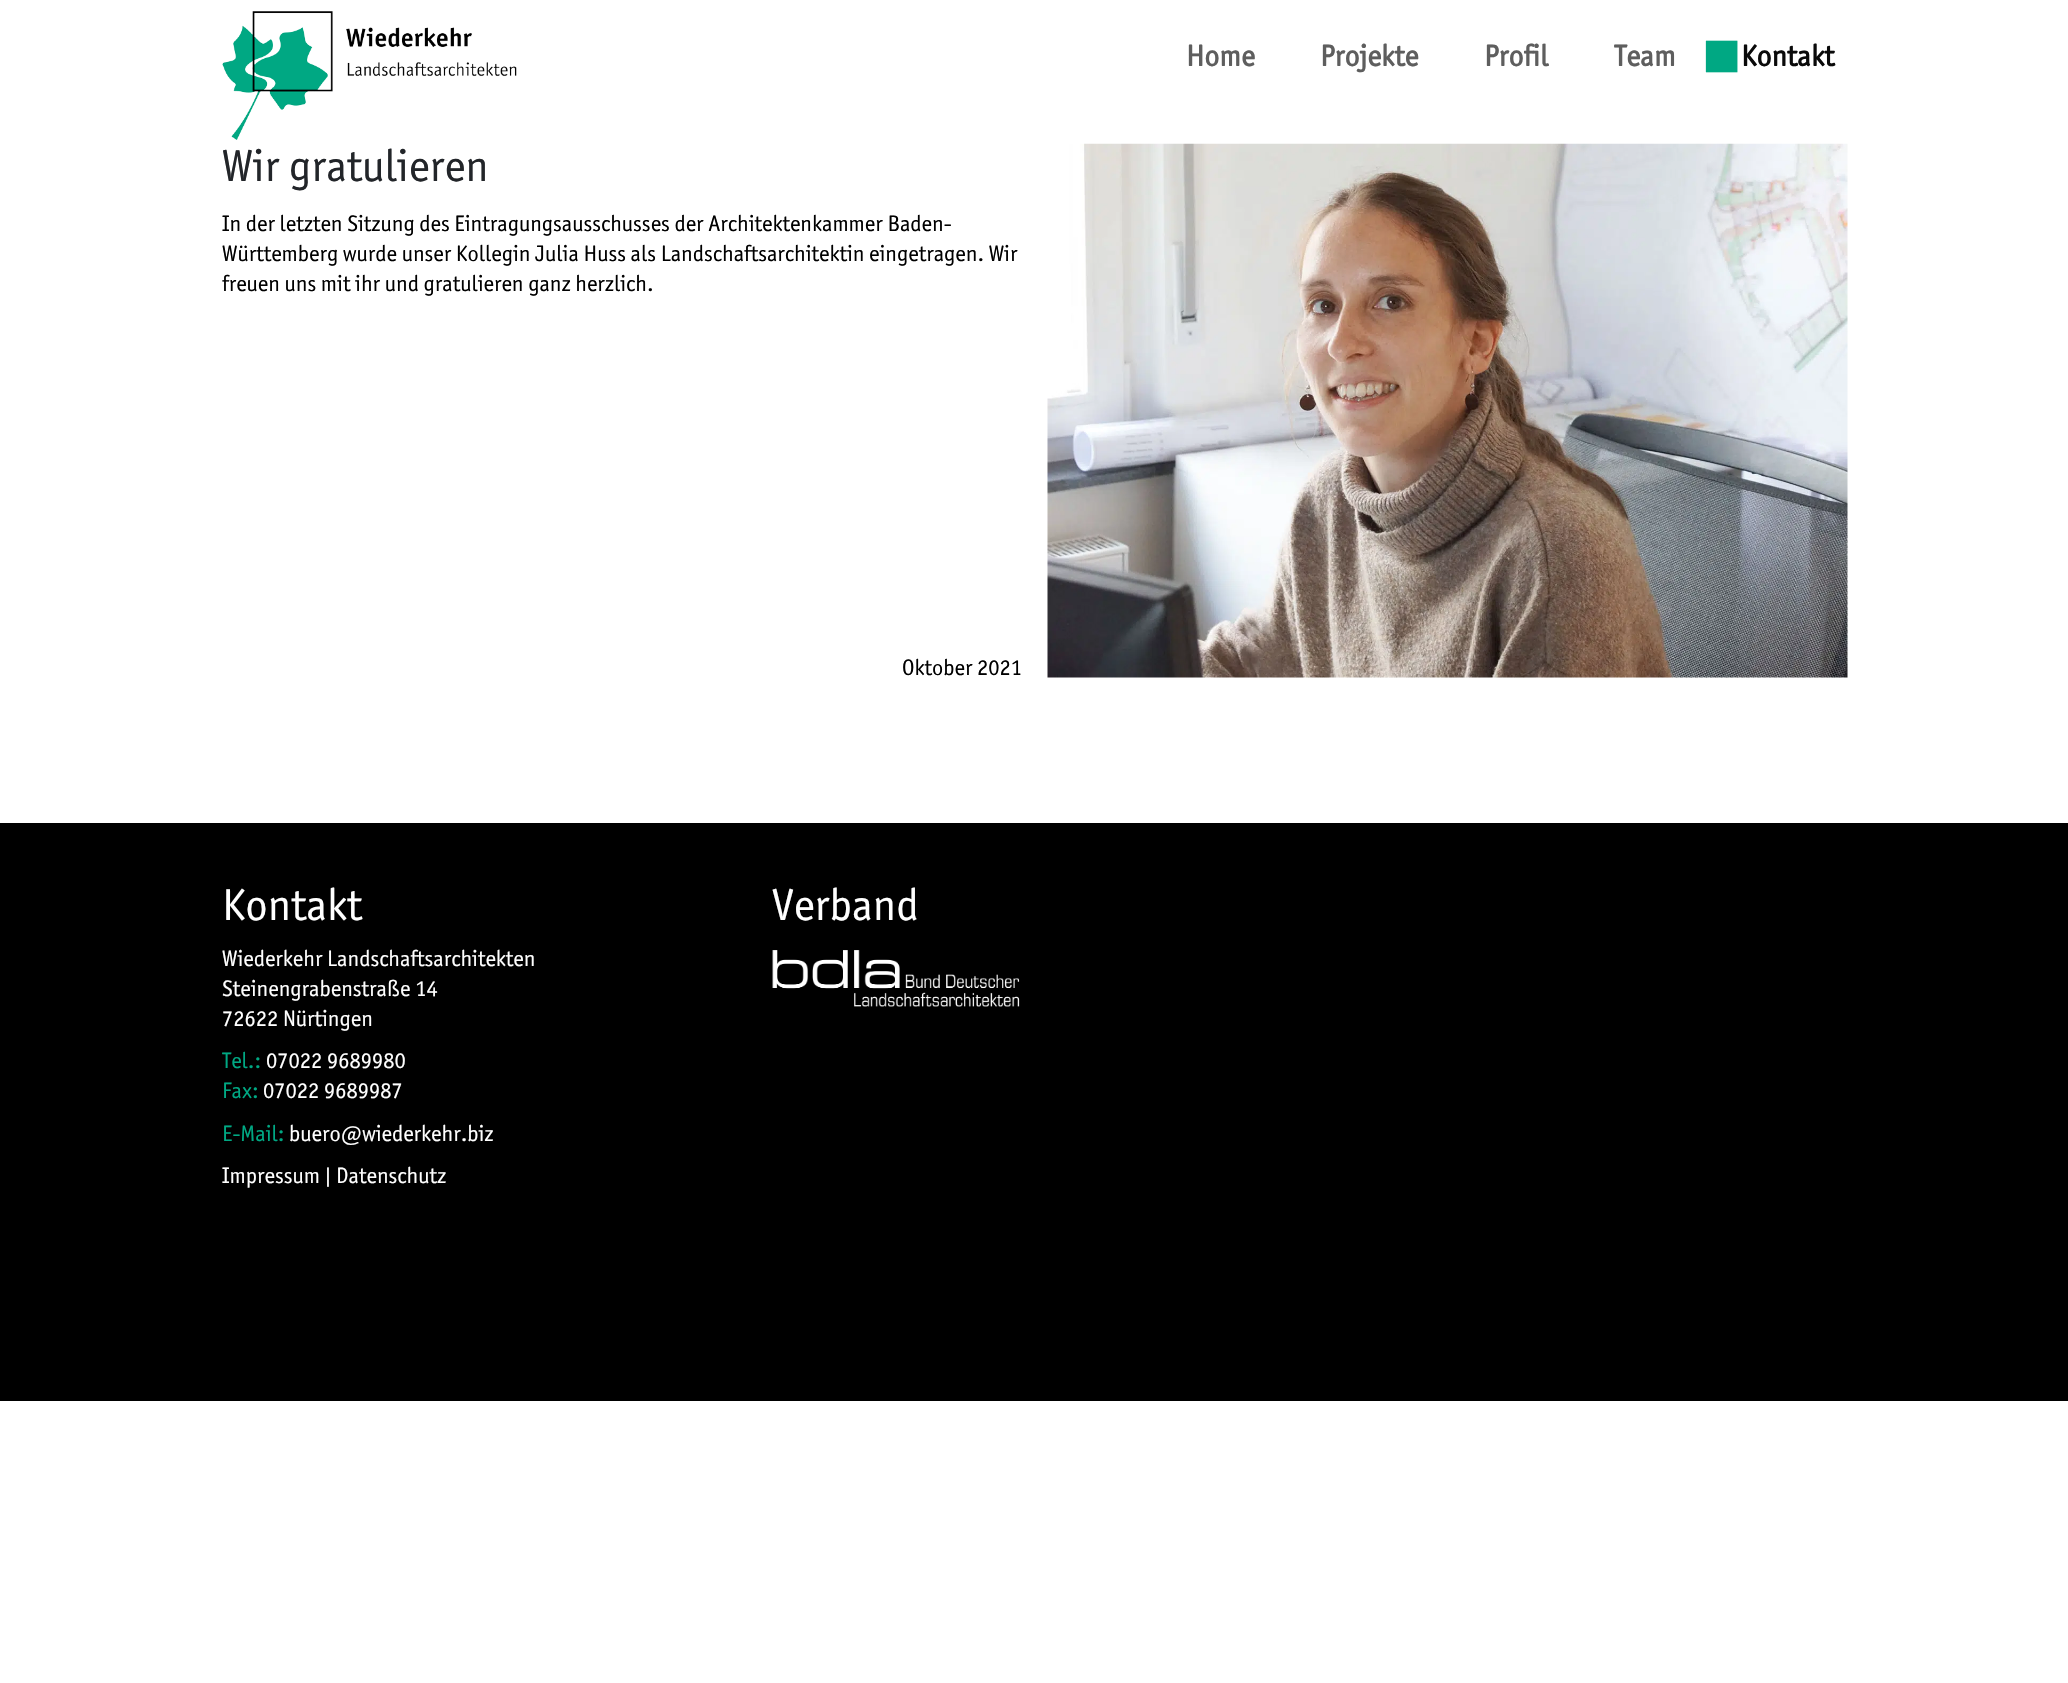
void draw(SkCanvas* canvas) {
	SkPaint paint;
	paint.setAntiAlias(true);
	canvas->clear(0xffffffff);
	canvas->drawImageRect(SkImages::DeferredFromEncodedData(SkData::MakeFromFileName("img1.png")), SkRect::MakeXYWH(222, 11, 295, 129), SkSamplingOptions());
	SkFont f1(fontMgr->matchFamilyStyle("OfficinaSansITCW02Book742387", SkFontStyle::Bold()), 30);
	f1.setSubpixel(true);
	paint.setColor(0xff5e5e5e);
	canvas->drawString("Home", 1186, 66, f1, paint);
	canvas->drawString("Projekte", 1320, 66, f1, paint);
	canvas->drawString("Profil", 1484, 66, f1, paint);
	canvas->drawString("Team", 1614, 66, f1, paint);
	SkFont f2(fontMgr->matchFamilyStyle("Liberation Serif", SkFontStyle::Normal()), 65);
	f2.setSubpixel(true);
	paint.setColor(0xff00a883);
	canvas->drawString("■", 1702, 76, f2, paint);
	paint.setColor(0xff0a0a0a);
	canvas->drawString("Kontakt", 1741, 66, f1, paint);
	SkFont f3(fontMgr->matchFamilyStyle("OfficinaSansITCW02Book742387", SkFontStyle::Normal()), 45);
	f3.setSubpixel(true);
	paint.setColor(0xff222529);
	canvas->drawString("Wir gratulieren", 222, 181, f3, paint);
	SkFont f4(fontMgr->matchFamilyStyle("OfficinaSansITCW02Book742387", SkFontStyle::Normal()), 22.5);
	f4.setSubpixel(true);
	paint.setColor(0xff000000);
	canvas->drawString("In der letzten Sitzung des Eintragungsausschusses der Architektenkammer Baden-", 222, 231, f4, paint);
	canvas->drawString("Württemberg wurde unser Kollegin Julia Huss als Landschaftsarchitektin eingetragen. Wir", 222, 261, f4, paint);
	canvas->drawString("freuen uns mit ihr und gratulieren ganz herzlich.", 222, 291, f4, paint);
	canvas->drawImageRect(SkImages::DeferredFromEncodedData(SkData::MakeFromFileName("img2.png")), SkRect::MakeXYWH(1047, 143, 801, 535), SkSamplingOptions());
	canvas->drawString("Oktober 2021", 902, 675, f4, paint);
	canvas->drawRect(SkRect::MakeXYWH(0, 823, 2068, 578), paint);
	paint.setColor(0xffffffff);
	canvas->drawString("Kontakt", 222, 920, f3, paint);
	canvas->drawString("Wiederkehr Landschaftsarchitekten", 222, 966, f4, paint);
	canvas->drawString("Steinengrabenstraße 14", 222, 996, f4, paint);
	canvas->drawString("72622 Nürtingen", 222, 1026, f4, paint);
	paint.setColor(0xff00a883);
	canvas->drawString("Tel.:", 222, 1068, f4, paint);
	paint.setColor(0xffffffff);
	canvas->drawString("07022 9689980", 266, 1068, f4, paint);
	paint.setColor(0xff00a883);
	canvas->drawString("Fax:", 222, 1098, f4, paint);
	paint.setColor(0xffffffff);
	canvas->drawString("07022 9689987", 263, 1098, f4, paint);
	paint.setColor(0xff00a883);
	canvas->drawString("E-Mail:", 222, 1141, f4, paint);
	paint.setColor(0xffffffff);
	canvas->drawString("buero@wiederkehr.biz", 289, 1141, f4, paint);
	canvas->drawString("Impressum | Datenschutz", 222, 1183, f4, paint);
	canvas->drawString("Verband", 772, 920, f3, paint);
	canvas->drawImageRect(SkImages::DeferredFromEncodedData(SkData::MakeFromFileName("img3.png")), SkRect::MakeXYWH(772, 950, 248, 57), SkSamplingOptions());
}
